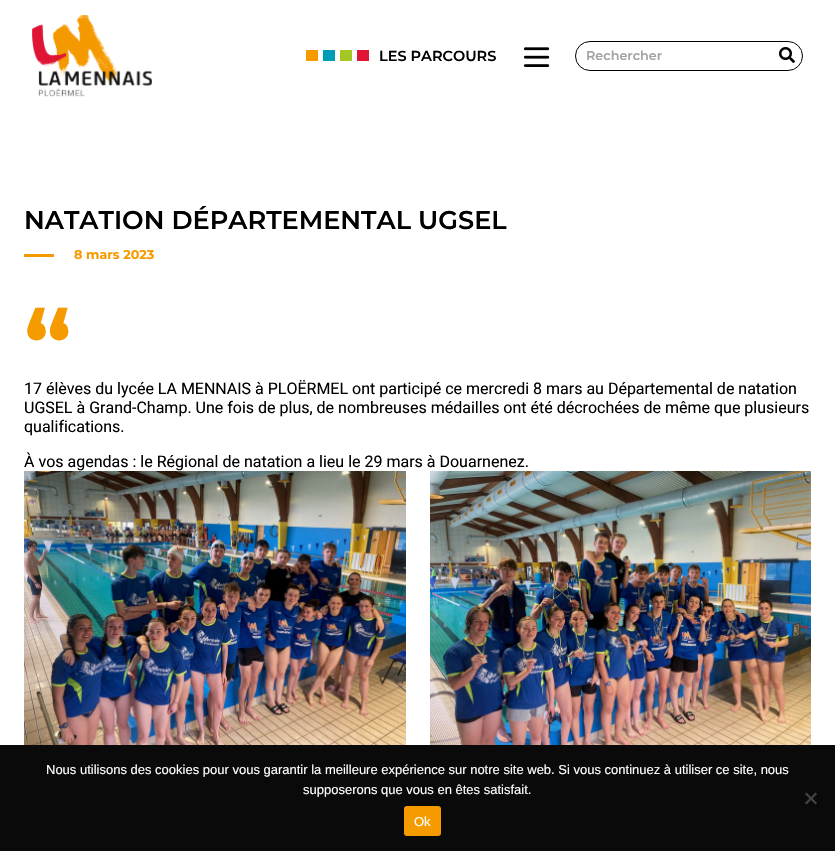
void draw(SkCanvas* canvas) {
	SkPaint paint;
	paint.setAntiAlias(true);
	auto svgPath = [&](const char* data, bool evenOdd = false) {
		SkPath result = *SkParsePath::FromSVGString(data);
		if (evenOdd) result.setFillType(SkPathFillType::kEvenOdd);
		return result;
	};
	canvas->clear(0xffffffff);
	canvas->drawImageRect(SkImages::DeferredFromEncodedData(SkData::MakeFromFileName("img1.png")), SkRect::MakeXYWH(32, 15, 120, 82), SkSamplingOptions());
	paint.setColor(0xfff59b00);
	canvas->drawRect(SkRect::MakeXYWH(306, 50, 12, 11), paint);
	paint.setColor(0xff009eb4);
	canvas->drawRect(SkRect::MakeXYWH(323, 50, 12, 11), paint);
	paint.setColor(0xffa5c724);
	canvas->drawRect(SkRect::MakeXYWH(340, 50, 12, 11), paint);
	paint.setColor(0xffe11637);
	canvas->drawRect(SkRect::MakeXYWH(357, 50, 12, 11), paint);
	SkFont f1(fontMgr->matchFamilyStyle("Montserrat", SkFontStyle(600, SkFontStyle::kNormal_Width, SkFontStyle::kUpright_Slant)), 14.5);
	f1.setSubpixel(true);
	paint.setColor(0xff000000);
	canvas->drawString("LES PARCOURS", 379, 61, f1, paint);
	canvas->drawImageRect(SkImages::DeferredFromEncodedData(SkData::MakeFromFileName("img2.png")), SkRect::MakeXYWH(523, 47, 27, 20), SkSamplingOptions());
	paint.setStroke(true);
	paint.setStrokeWidth(1);
	canvas->drawRoundRect(SkRect::MakeXYWH(575.5, 41.5, 227, 29), 14.5, 14.5, paint);
	SkFont f2(fontMgr->matchFamilyStyle("Montserrat", SkFontStyle(600, SkFontStyle::kNormal_Width, SkFontStyle::kUpright_Slant)), 12.75);
	f2.setSubpixel(true);
	paint.setStroke(false);
	paint.setColor(0xffa3a3a3);
	canvas->drawString("Rechercher", 586, 60, f2, paint);
	canvas->drawImageRect(SkImages::DeferredFromEncodedData(SkData::MakeFromFileName("img3.png")), SkRect::MakeXYWH(779, 47, 16, 16), SkSamplingOptions());
	SkFont f3(fontMgr->matchFamilyStyle("Montserrat", SkFontStyle(600, SkFontStyle::kNormal_Width, SkFontStyle::kUpright_Slant)), 25.6);
	f3.setSubpixel(true);
	paint.setColor(0xff000000);
	canvas->drawString("NATATION DÉPARTEMENTAL UGSEL", 24, 229, f3, paint);
	paint.setColor(0xfff59b00);
	canvas->drawRect(SkRect::MakeXYWH(24, 254, 30, 3), paint);
	SkFont f4(fontMgr->matchFamilyStyle("Montserrat", SkFontStyle::Bold()), 12.75);
	f4.setSubpixel(true);
	canvas->drawString("8 mars 2023", 74, 259, f4, paint);
	SkFont f5(fontMgr->matchFamilyStyle("Montserrat", SkFontStyle::Bold()), 96);
	f5.setSubpixel(true);
	canvas->drawString("“", 24, 379, f5, paint);
	SkFont f6(fontMgr->matchFamilyStyle("Roboto", SkFontStyle::Normal()), 16);
	f6.setSubpixel(true);
	paint.setColor(0xff000000);
	canvas->drawString("17 élèves du lycée LA MENNAIS à PLOËRMEL ont participé ce mercredi 8 mars au Départemental de natation", 24, 394, f6, paint);
	canvas->drawString("UGSEL à Grand-Champ. Une fois de plus, de nombreuses médailles ont été décrochées de même que plusieurs", 24, 413, f6, paint);
	canvas->drawString("qualifications.", 24, 432, f6, paint);
	canvas->drawString("À vos agendas : le Régional de natation a lieu le 29 mars à Douarnenez.", 24, 467, f6, paint);
	canvas->drawImageRect(SkImages::DeferredFromEncodedData(SkData::MakeFromFileName("img4.png")), SkRect::MakeXYWH(24, 471, 382, 274), SkSamplingOptions());
	canvas->drawImageRect(SkImages::DeferredFromEncodedData(SkData::MakeFromFileName("img5.png")), SkRect::MakeXYWH(430, 471, 381, 274), SkSamplingOptions());
	paint.setColor(0xff0a0a0a);
	canvas->drawRect(SkRect::MakeXYWH(0, 745, 835, 106), paint);
	SkFont f7(fontMgr->matchFamilyStyle("Liberation Sans", SkFontStyle::Normal()), 13);
	f7.setSubpixel(true);
	paint.setColor(0xffffffff);
	canvas->drawString("Nous utilisons des cookies pour vous garantir la meilleure expérience sur notre site web. Si vous continuez à utiliser ce site, nous", 46, 774, f7, paint);
	canvas->drawString("supposerons que vous en êtes satisfait.", 303, 794, f7, paint);
	paint.setColor(0xff454545);
	canvas->drawPath(svgPath("M815.5 792.5L817 794L806.5 804.5L805 803Z"), paint);
	canvas->drawPath(svgPath("M805 794L806.5 792.5L817 803L815.5 804.5Z"), paint);
	paint.setColor(0xfff59b00);
	canvas->drawRoundRect(SkRect::MakeXYWH(404, 806, 37, 30), 3, 3, paint);
	paint.setColor(0xffffffff);
	canvas->drawString("Ok", 414, 826, f7, paint);
}
